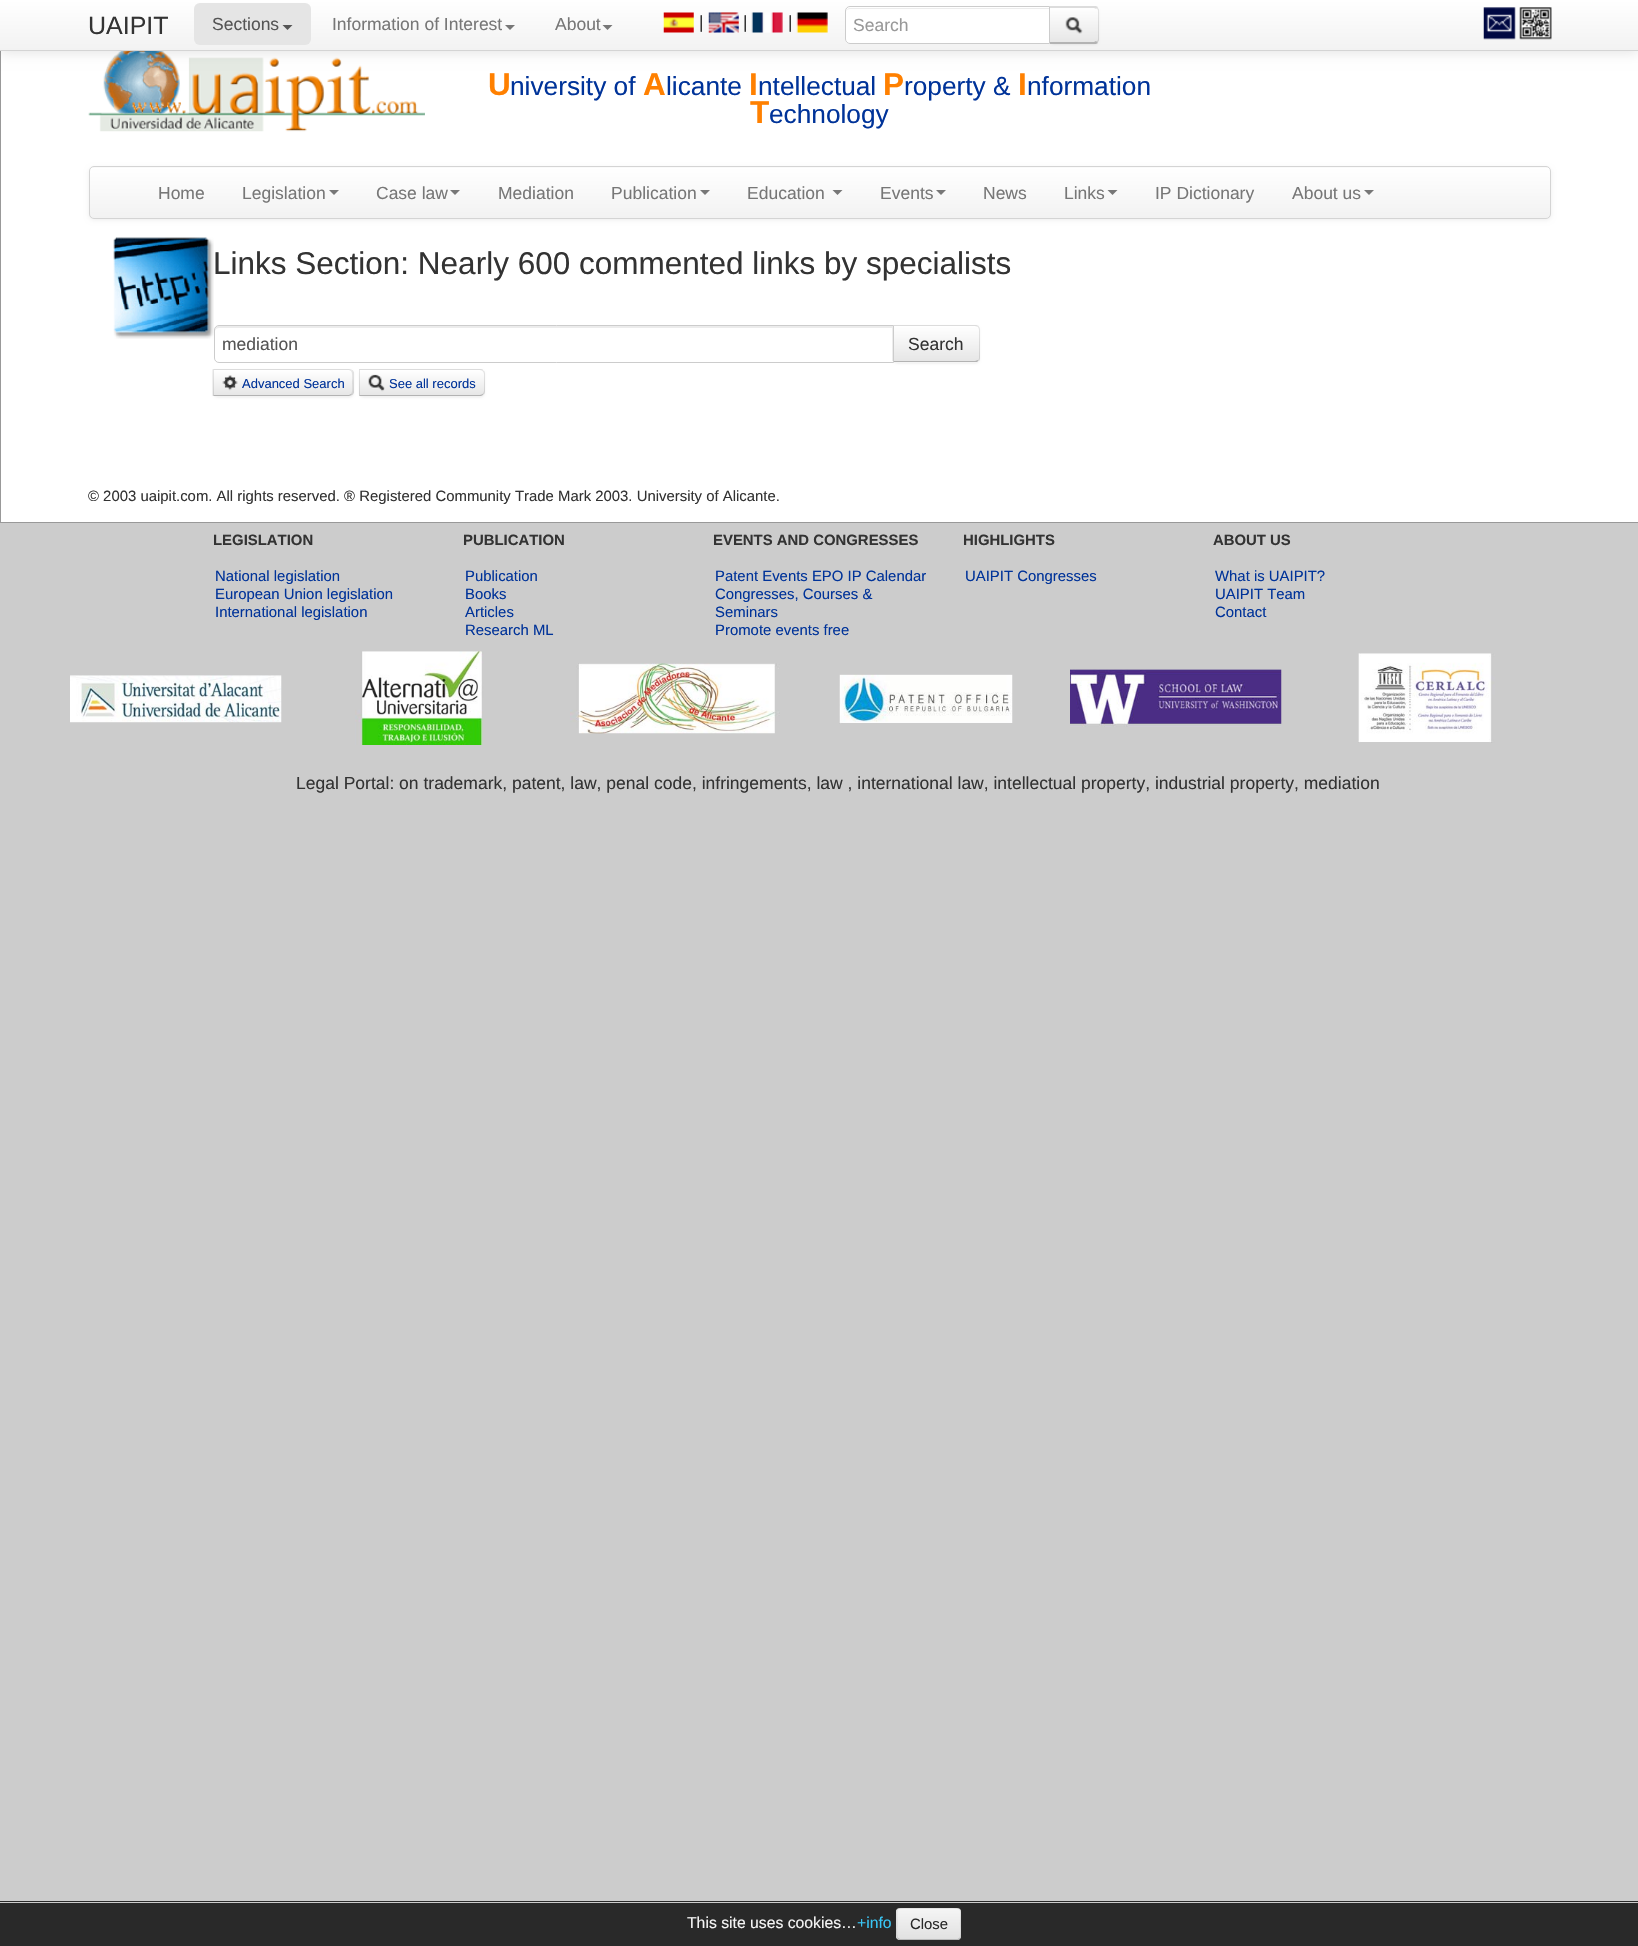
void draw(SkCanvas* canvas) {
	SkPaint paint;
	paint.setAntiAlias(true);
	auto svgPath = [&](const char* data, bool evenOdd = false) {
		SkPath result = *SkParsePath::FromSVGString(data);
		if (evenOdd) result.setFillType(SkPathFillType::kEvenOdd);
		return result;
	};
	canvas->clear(0xffcccccc);
	paint.setColor(0xffffffff);
	canvas->drawRect(SkRect::MakeXYWH(1, 51, 1637, 471), paint);
	paint.setStroke(true);
	paint.setStrokeWidth(1);
	paint.setColor(0xff999999);
	canvas->drawRect(SkRect::MakeXYWH(0.5, 25.5, 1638, 497), paint);
	canvas->drawImageRect(SkImages::DeferredFromEncodedData(SkData::MakeFromFileName("img8.png")), SkRect::MakeXYWH(88, 51, 337, 81), SkSamplingOptions());
	paint.setStroke(false);
	paint.setColor(0x1a000000);
	paint.setMaskFilter(SkMaskFilter::MakeBlur(kNormal_SkBlurStyle, 6));
	canvas->drawRect(SkRect::MakeXYWH(0, 1, 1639, 52), paint);
	paint.setMaskFilter(nullptr);
	{
		const SkColor colors[] = {0xffffffff, 0xfff2f2f2};
		const float stops[] = {0, 1};
		const SkPoint ends[] = {{819, 0}, {819, 50}};
		paint.setShader(SkGradientShader::MakeLinear(ends, colors, stops, 2, SkTileMode::kClamp));
		paint.setAlpha(255);
	}
	canvas->drawRect(SkRect::MakeXYWH(0, 0, 1638, 50), paint);
	paint.setShader(nullptr);
	paint.setColor(0xffd4d4d4);
	canvas->drawRect(SkRect::MakeXYWH(0, 50, 1638, 1), paint);
	SkFont f1(fontMgr->matchFamilyStyle("Liberation Sans", SkFontStyle::Normal()), 25);
	f1.setSubpixel(true);
	paint.setColor(0xff333333);
	canvas->drawString("UAIPIT", 88, 34, f1, paint);
	paint.setColor(0xffe5e5e5);
	canvas->drawRoundRect(SkRect::MakeXYWH(194, 3, 117, 42), 6, 6, paint);
	SkFont f2(fontMgr->matchFamilyStyle("Liberation Sans", SkFontStyle::Normal()), 17.5);
	f2.setSubpixel(true);
	paint.setColor(0xff555555);
	canvas->drawString("Sections", 212, 30, f2, paint);
	canvas->drawPath(svgPath("M282.5 25H292.5L287.5 30Z"), paint);
	paint.setColor(0xff777777);
	canvas->drawString("Information of Interest", 332, 30, f2, paint);
	canvas->drawPath(svgPath("M505 25H515L510 30Z"), paint);
	canvas->drawString("About", 555, 30, f2, paint);
	canvas->drawPath(svgPath("M602.5 25H612.5L607.5 30Z"), paint);
	canvas->drawImageRect(SkImages::DeferredFromEncodedData(SkData::MakeFromFileName("img1.png")), SkRect::MakeXYWH(663, 12, 31, 21), SkSamplingOptions());
	paint.setColor(0xff333333);
	canvas->drawString("|", 699, 28, f2, paint);
	canvas->drawImageRect(SkImages::DeferredFromEncodedData(SkData::MakeFromFileName("img2.png")), SkRect::MakeXYWH(708, 12, 31, 21), SkSamplingOptions());
	canvas->drawString("|", 743, 28, f2, paint);
	canvas->drawImageRect(SkImages::DeferredFromEncodedData(SkData::MakeFromFileName("img3.png")), SkRect::MakeXYWH(751, 12, 32, 21), SkSamplingOptions());
	canvas->drawString("|", 788, 28, f2, paint);
	canvas->drawImageRect(SkImages::DeferredFromEncodedData(SkData::MakeFromFileName("img4.png")), SkRect::MakeXYWH(796, 12, 32, 21), SkSamplingOptions());
	paint.setColor(0x0d000000);
	paint.setMaskFilter(SkMaskFilter::MakeBlur(kNormal_SkBlurStyle, 1));
	canvas->drawRoundRect(SkRect::MakeXYWH(1049, 8, 50, 37), 5, 5, paint);
	paint.setMaskFilter(nullptr);
	paint.setColor(0xfff5f5f5);
	canvas->drawPath(svgPath("M1049 6H1094C1097 6 1099 8 1099 11V39C1099 42 1097 44 1094 44H1049Z"), paint);
	canvas->save();
	canvas->clipPath(svgPath("M1049 6H1094C1097 6 1099 8 1099 11V39C1099 42 1097 44 1094 44H1049Z"), true);
	{
		const SkColor colors[] = {0xffffffff, 0xffe6e6e6};
		const float stops[] = {0, 1};
		const SkPoint ends[] = {{1074, 7.5}, {1074, 43}};
		paint.setShader(SkGradientShader::MakeLinear(ends, colors, stops, 2, SkTileMode::kClamp));
		paint.setAlpha(255);
	}
	canvas->drawRect(SkRect::MakeXYWH(1050, 8, 49, 35), paint);
	canvas->restore();
	paint.setShader(nullptr);
	paint.setColor(0x1a000000);
	canvas->drawPath(svgPath("M1049 6H1096L1098 7L1096 9L1094 8H1050Z"), paint);
	canvas->drawPath(svgPath("M1099 40.5L1097.5 42.5L1096.5 41.5C1097.5 41 1098 40 1098 39V11C1098 10 1097.5 9 1096.5 8.5L1097.5 7.5L1099 9.5Z"), paint);
	paint.setColor(0xffb3b3b3);
	canvas->drawPath(svgPath("M1049 44L1050 42H1094L1096 41L1098 43L1096 44Z"), paint);
	paint.setColor(0xffffffff);
	canvas->drawPath(svgPath("M850 6H1050V44H850C847 44 845 42 845 39V11C845 8 847 6 850 6Z"), paint);
	paint.setColor(0xffececec);
	canvas->drawPath(svgPath("M850 9H1049V8H850C848 8 846 10 846 12C846 10 848 9 850 9Z"), paint);
	paint.setStroke(true);
	paint.setColor(0xffcccccc);
	canvas->drawPath(svgPath("M850 6.5H1049.5V43.5H850C847.5 43.5 845.5 41.5 845.5 39V11C845.5 8.5 847.5 6.5 850 6.5Z"), paint);
	paint.setStroke(false);
	paint.setColor(0xff999999);
	canvas->drawString("Search", 853, 31, f2, paint);
	canvas->drawImageRect(SkImages::DeferredFromEncodedData(SkData::MakeFromFileName("img5.png")), SkRect::MakeXYWH(1065, 17, 18, 17), SkSamplingOptions());
	canvas->drawImageRect(SkImages::DeferredFromEncodedData(SkData::MakeFromFileName("img6.png")), SkRect::MakeXYWH(1483, 7, 33, 33), SkSamplingOptions());
	canvas->drawImageRect(SkImages::DeferredFromEncodedData(SkData::MakeFromFileName("img7.png")), SkRect::MakeXYWH(1519, 7, 33, 33), SkSamplingOptions());
	SkFont f3(fontMgr->matchFamilyStyle("Liberation Sans", SkFontStyle::Bold()), 31.5);
	f3.setSubpixel(true);
	paint.setColor(0xffff8000);
	canvas->drawString("U", 488, 95, f3, paint);
	SkFont f4(fontMgr->matchFamilyStyle("Liberation Sans", SkFontStyle::Normal()), 26.25);
	f4.setSubpixel(true);
	paint.setColor(0xff003399);
	canvas->drawString("niversity of", 510, 95, f4, paint);
	paint.setColor(0xffff8000);
	canvas->drawString("A", 643, 95, f3, paint);
	paint.setColor(0xff003399);
	canvas->drawString("licante", 666, 95, f4, paint);
	paint.setColor(0xffff8000);
	canvas->drawString("I", 749, 95, f3, paint);
	paint.setColor(0xff003399);
	canvas->drawString("ntellectual", 758, 95, f4, paint);
	paint.setColor(0xffff8000);
	canvas->drawString("P", 883, 95, f3, paint);
	paint.setColor(0xff003399);
	canvas->drawString("roperty &", 904, 95, f4, paint);
	paint.setColor(0xffff8000);
	canvas->drawString("I", 1018, 95, f3, paint);
	paint.setColor(0xff003399);
	canvas->drawString("nformation", 1027, 95, f4, paint);
	paint.setColor(0xffff8000);
	canvas->drawString("T", 750, 123, f3, paint);
	paint.setColor(0xff003399);
	canvas->drawString("echnology", 769, 123, f4, paint);
	paint.setColor(0x12000000);
	paint.setMaskFilter(SkMaskFilter::MakeBlur(kNormal_SkBlurStyle, 2.5));
	canvas->drawRoundRect(SkRect::MakeXYWH(89, 168, 1462, 52), 5, 5, paint);
	paint.setMaskFilter(nullptr);
	paint.setColor(0xfffafafa);
	canvas->drawRoundRect(SkRect::MakeXYWH(89, 166, 1462, 53), 5, 5, paint);
	canvas->save();
	canvas->clipPath(svgPath("M94 166H1546C1549 166 1551 168 1551 171V214C1551 217 1549 219 1546 219H94C91 219 89 217 89 214V171C89 168 91 166 94 166Z"), true);
	{
		const SkColor colors[] = {0xffffffff, 0xfff2f2f2};
		const float stops[] = {0, 1};
		const SkPoint ends[] = {{820, 167}, {820, 218}};
		paint.setShader(SkGradientShader::MakeLinear(ends, colors, stops, 2, SkTileMode::kClamp));
		paint.setAlpha(255);
	}
	canvas->drawRect(SkRect::MakeXYWH(89, 168, 1462, 50), paint);
	canvas->restore();
	paint.setStroke(true);
	paint.setShader(nullptr);
	paint.setColor(0xffd4d4d4);
	canvas->drawRoundRect(SkRect::MakeXYWH(89.5, 166.5, 1461, 52), 4.5, 4.5, paint);
	paint.setStroke(false);
	paint.setColor(0xff777777);
	canvas->drawString("Home", 158, 199, f2, paint);
	canvas->drawString("Legislation", 242, 199, f2, paint);
	canvas->drawPath(svgPath("M329 190H339L334 195Z"), paint);
	canvas->drawString("Case law", 376, 199, f2, paint);
	canvas->drawPath(svgPath("M450 190H460L455 195Z"), paint);
	canvas->drawString("Mediation", 498, 199, f2, paint);
	canvas->drawString("Publication", 611, 199, f2, paint);
	canvas->drawPath(svgPath("M700 190H710L705 195Z"), paint);
	canvas->drawString("Education", 747, 199, f2, paint);
	canvas->drawPath(svgPath("M832.5 190H842.5L837.5 195Z"), paint);
	canvas->drawString("Events", 880, 199, f2, paint);
	canvas->drawPath(svgPath("M936 190H946L941 195Z"), paint);
	canvas->drawString("News", 983, 199, f2, paint);
	canvas->drawString("Links", 1064, 199, f2, paint);
	canvas->drawPath(svgPath("M1107.5 190H1117.5L1112.5 195Z"), paint);
	canvas->drawString("IP Dictionary", 1155, 199, f2, paint);
	canvas->drawString("About us", 1292, 199, f2, paint);
	canvas->drawPath(svgPath("M1364 190H1374L1369 195Z"), paint);
	canvas->drawImageRect(SkImages::DeferredFromEncodedData(SkData::MakeFromFileName("img9.png")), SkRect::MakeXYWH(113, 237, 101, 102), SkSamplingOptions());
	SkFont f5(fontMgr->matchFamilyStyle("Liberation Sans", SkFontStyle::Normal()), 31.5);
	f5.setSubpixel(true);
	paint.setColor(0xff333333);
	canvas->drawString("Links Section: Nearly 600 commented links by specialists", 213, 274, f5, paint);
	paint.setColor(0x0d000000);
	paint.setMaskFilter(SkMaskFilter::MakeBlur(kNormal_SkBlurStyle, 1));
	canvas->drawRoundRect(SkRect::MakeXYWH(893, 326, 87, 38), 5, 5, paint);
	paint.setMaskFilter(nullptr);
	paint.setColor(0xfff5f5f5);
	canvas->drawPath(svgPath("M893 325H975C978 325 980 327 980 330V358C980 361 978 363 975 363H893Z"), paint);
	canvas->save();
	canvas->clipPath(svgPath("M893 325H975C978 325 980 327 980 330V358C980 361 978 363 975 363H893Z"), true);
	{
		const SkColor colors[] = {0xffffffff, 0xffe6e6e6};
		const float stops[] = {0, 1};
		const SkPoint ends[] = {{936, 326}, {936, 361}};
		paint.setShader(SkGradientShader::MakeLinear(ends, colors, stops, 2, SkTileMode::kClamp));
		paint.setAlpha(255);
	}
	canvas->drawRect(SkRect::MakeXYWH(894, 326, 86, 35), paint);
	canvas->restore();
	paint.setShader(nullptr);
	paint.setColor(0x1a000000);
	canvas->drawPath(svgPath("M894 326H975L978 327L979 326L976 325H892Z"), paint);
	paint.setColor(0xffb3b3b3);
	canvas->drawPath(svgPath("M978 361C978 362 976 362 975 362H893L894 361H975L978 360Z"), paint);
	paint.setColor(0xffffffff);
	canvas->drawPath(svgPath("M219 325H894V363H219C216 363 214 361 214 358V330C214 327 216 325 219 325Z"), paint);
	paint.setColor(0xffececec);
	canvas->drawPath(svgPath("M219 328H892V361H893V326H219C217 326 215 328 215 330V331C215 329 217 328 219 328Z"), paint);
	paint.setStroke(true);
	paint.setColor(0xffcccccc);
	canvas->drawPath(svgPath("M219 325.5H893.5V362.5H219C216.5 362.5 214.5 360.5 214.5 358V330C214.5 327.5 216.5 325.5 219 325.5Z"), paint);
	paint.setStroke(false);
	paint.setColor(0xff555555);
	canvas->drawString("mediation", 222, 350, f2, paint);
	paint.setColor(0x1a000000);
	canvas->drawPath(svgPath("M980 358V330C980 328.5 979.5 327 978.5 326.5L978 327C978.5 328 979 329 979 330V358C979 359 978.5 360 978 360L978.5 361C979.5 360 980 359 980 358Z"), paint);
	paint.setColor(0xff333333);
	canvas->drawString("Search", 908, 350, f2, paint);
	paint.setColor(0x0d000000);
	paint.setMaskFilter(SkMaskFilter::MakeBlur(kNormal_SkBlurStyle, 1));
	canvas->drawRoundRect(SkRect::MakeXYWH(213, 370, 141, 28), 5, 5, paint);
	paint.setMaskFilter(nullptr);
	paint.setColor(0xfff5f5f5);
	canvas->drawPath(svgPath("M213 369H349C352 369 354 371 354 374V391C354 394 352 396 349 396H213Z"), paint);
	canvas->save();
	canvas->clipPath(svgPath("M213 369H349C352 369 354 371 354 374V391C354 394 352 396 349 396H213Z"), true);
	{
		const SkColor colors[] = {0xffffffff, 0xffe6e6e6};
		const float stops[] = {0, 1};
		const SkPoint ends[] = {{283, 370}, {283, 395}};
		paint.setShader(SkGradientShader::MakeLinear(ends, colors, stops, 2, SkTileMode::kClamp));
		paint.setAlpha(255);
	}
	canvas->drawRect(SkRect::MakeXYWH(213, 370, 141, 25), paint);
	canvas->restore();
	paint.setShader(nullptr);
	paint.setColor(0x33ffffff);
	canvas->drawPath(svgPath("M214 371H349C353 371 352 379 352 381V394C353 393 353 392 353 391V374C353 372 351 370 349 370H214Z"), paint);
	paint.setColor(0x1a000000);
	canvas->drawPath(svgPath("M214 370H349L351 371L352 370L349 369H213Z"), paint);
	canvas->drawPath(svgPath("M352.5 370C353 370.5 353.5 371.5 354 372.5V392.5C353.5 393.5 353 394.5 352.5 395L351 394C353 391.5 352 385 352 382.5C352 380 353 373.5 351 371Z"), paint);
	paint.setColor(0xffb3b3b3);
	canvas->drawPath(svgPath("M352 395L349 396H213L214 395H349L351 394Z"), paint);
	paint.setColor(0x1a000000);
	canvas->drawPath(svgPath("M212.5 369L214 370V395L213 396H212.5Z"), paint);
	canvas->drawImageRect(SkImages::DeferredFromEncodedData(SkData::MakeFromFileName("img10.png")), SkRect::MakeXYWH(222, 375, 16, 16), SkSamplingOptions());
	SkFont f6(fontMgr->matchFamilyStyle("Liberation Sans", SkFontStyle::Normal()), 13);
	f6.setSubpixel(true);
	paint.setColor(0xff003399);
	canvas->drawString("Advanced Search", 242, 388, f6, paint);
	paint.setColor(0x0d000000);
	paint.setMaskFilter(SkMaskFilter::MakeBlur(kNormal_SkBlurStyle, 1));
	canvas->drawRoundRect(SkRect::MakeXYWH(359, 370, 126, 28), 5, 5, paint);
	paint.setMaskFilter(nullptr);
	paint.setColor(0xfff5f5f5);
	canvas->drawPath(svgPath("M359 369H480C483 369 485 371 485 374V391C485 394 483 396 480 396H359Z"), paint);
	canvas->save();
	canvas->clipPath(svgPath("M359 369H480C483 369 485 371 485 374V391C485 394 483 396 480 396H359Z"), true);
	{
		const SkColor colors[] = {0xffffffff, 0xffe6e6e6};
		const float stops[] = {0, 1};
		const SkPoint ends[] = {{422, 370}, {422, 395}};
		paint.setShader(SkGradientShader::MakeLinear(ends, colors, stops, 2, SkTileMode::kClamp));
		paint.setAlpha(255);
	}
	canvas->drawRect(SkRect::MakeXYWH(359, 370, 126, 25), paint);
	canvas->restore();
	paint.setShader(nullptr);
	paint.setColor(0x1a000000);
	canvas->drawPath(svgPath("M359 369L360 370H480L483 371V370C483 369 481 369 480 369Z"), paint);
	canvas->drawPath(svgPath("M483.5 370.5C484.5 371 485 372.5 485 374V391C485 392.5 484.5 394 483.5 394.5L482.5 394C483.5 393 484 392 484 391V374C484 373 483.5 372 482.5 371Z"), paint);
	paint.setColor(0xffb3b3b3);
	canvas->drawPath(svgPath("M483 395L481 396H359L360 395H480L483 394Z"), paint);
	paint.setColor(0x1a000000);
	canvas->drawPath(svgPath("M360 370L359 369V396L360 395Z"), paint);
	canvas->drawImageRect(SkImages::DeferredFromEncodedData(SkData::MakeFromFileName("img11.png")), SkRect::MakeXYWH(368, 374, 17, 18), SkSamplingOptions());
	paint.setColor(0xff003399);
	canvas->drawString("See all records", 389, 388, f6, paint);
	SkFont f7(fontMgr->matchFamilyStyle("Liberation Sans", SkFontStyle::Normal()), 14.9);
	f7.setSubpixel(true);
	paint.setColor(0xff333333);
	canvas->drawString("© 2003 uaipit.com. All rights reserved. ® Registered Community Trade Mark 2003. University of Alicante.", 88, 501, f7, paint);
	SkFont f8(fontMgr->matchFamilyStyle("Liberation Sans", SkFontStyle::Bold()), 14.9);
	f8.setSubpixel(true);
	canvas->drawString("LEGISLATION", 213, 545, f8, paint);
	paint.setColor(0xff003399);
	canvas->drawString("National legislation", 215, 581, f7, paint);
	canvas->drawString("European Union legislation", 215, 599, f7, paint);
	canvas->drawString("International legislation", 215, 617, f7, paint);
	paint.setColor(0xff333333);
	canvas->drawString("PUBLICATION", 463, 545, f8, paint);
	paint.setColor(0xff003399);
	canvas->drawString("Publication", 465, 581, f7, paint);
	canvas->drawString("Books", 465, 599, f7, paint);
	canvas->drawString("Articles", 465, 617, f7, paint);
	canvas->drawString("Research ML", 465, 635, f7, paint);
	paint.setColor(0xff333333);
	canvas->drawString("EVENTS AND CONGRESSES", 713, 545, f8, paint);
	paint.setColor(0xff003399);
	canvas->drawString("Patent Events EPO IP Calendar", 715, 581, f7, paint);
	canvas->drawString("Congresses, Courses &", 715, 599, f7, paint);
	canvas->drawString("Seminars", 715, 617, f7, paint);
	canvas->drawString("Promote events free", 715, 635, f7, paint);
	paint.setColor(0xff333333);
	canvas->drawString("HIGHLIGHTS", 963, 545, f8, paint);
	paint.setColor(0xff003399);
	canvas->drawString("UAIPIT Congresses", 965, 581, f7, paint);
	paint.setColor(0xff333333);
	canvas->drawString("ABOUT US", 1213, 545, f8, paint);
	paint.setColor(0xff003399);
	canvas->drawString("What is UAIPIT?", 1215, 581, f7, paint);
	canvas->drawString("UAIPIT Team", 1215, 599, f7, paint);
	canvas->drawString("Contact", 1215, 617, f7, paint);
	canvas->drawImageRect(SkImages::DeferredFromEncodedData(SkData::MakeFromFileName("img12.png")), SkRect::MakeXYWH(70, 675, 212, 48), SkSamplingOptions());
	canvas->drawImageRect(SkImages::DeferredFromEncodedData(SkData::MakeFromFileName("img13.png")), SkRect::MakeXYWH(355, 651, 129, 94), SkSamplingOptions());
	canvas->drawImageRect(SkImages::DeferredFromEncodedData(SkData::MakeFromFileName("img14.png")), SkRect::MakeXYWH(570, 663, 210, 71), SkSamplingOptions());
	canvas->drawImageRect(SkImages::DeferredFromEncodedData(SkData::MakeFromFileName("img15.png")), SkRect::MakeXYWH(839, 674, 174, 50), SkSamplingOptions());
	canvas->drawImageRect(SkImages::DeferredFromEncodedData(SkData::MakeFromFileName("img16.png")), SkRect::MakeXYWH(1070, 669, 212, 58), SkSamplingOptions());
	canvas->drawImageRect(SkImages::DeferredFromEncodedData(SkData::MakeFromFileName("img17.png")), SkRect::MakeXYWH(1358, 653, 137, 90), SkSamplingOptions());
	paint.setColor(0xff333333);
	canvas->drawString("Legal Portal: on trademark, patent, law, penal code, infringements, law , international law, intellectual property, industrial property, mediation", 296, 789, f2, paint);
	paint.setColor(0xff292929);
	canvas->drawRect(SkRect::MakeXYWH(0, 1903, 1638, 43), paint);
	canvas->drawRect(SkRect::MakeXYWH(0, 1901, 1638, 1), paint);
	SkFont f9(fontMgr->matchFamilyStyle("Liberation Sans", SkFontStyle::Normal()), 15.75);
	f9.setSubpixel(true);
	paint.setColor(0xfff5f5f5);
	canvas->drawString("This site uses cookies…", 687, 1928, f9, paint);
	paint.setColor(0xff39c6f5);
	canvas->drawString("+info", 857, 1928, f9, paint);
	paint.setColor(0xffededed);
	canvas->drawRoundRect(SkRect::MakeXYWH(896, 1908, 65, 32), 4, 4, paint);
	canvas->save();
	canvas->clipPath(svgPath("M900 1908H957C959 1908 961 1910 961 1912V1936C961 1938 959 1940 957 1940H900C898 1940 896 1938 896 1936V1912C896 1910 898 1908 900 1908Z"), true);
	{
		const SkColor colors[] = {0xfff5f5f5, 0xffe1e1e1};
		const float stops[] = {0, 1};
		const SkPoint ends[] = {{929, 1909}, {929, 1939}};
		paint.setShader(SkGradientShader::MakeLinear(ends, colors, stops, 2, SkTileMode::kClamp));
		paint.setAlpha(255);
	}
	canvas->drawRect(SkRect::MakeXYWH(896, 1909, 65, 30), paint);
	canvas->restore();
	paint.setShader(nullptr);
	paint.setColor(0xfff5f5f5);
	canvas->drawPath(svgPath("M900 1910H958C959 1910 960 1911 960 1912C960 1907 950 1909 948 1909H910C908 1909 898 1907 898 1912C898 1911 899 1910 900 1910Z"), paint);
	paint.setStroke(true);
	paint.setStrokeWidth(1.2);
	paint.setColor(0xffb8b8b8);
	canvas->drawPath(svgPath("M959.5 1938.5L958 1939.5H899.5L898 1938.5"), paint);
	paint.setColor(0x1a292929);
	canvas->drawPath(svgPath("M898 1938.5C895.5 1936.5 897 1926.5 897 1924C897 1907 893.5 1908 909.5 1908H948C964 1908 960.5 1907 960.5 1924C960.5 1926.5 962 1936.5 959.5 1938.5"), paint);
	paint.setStroke(false);
	paint.setColor(0xff292929);
	canvas->drawString("Close", 910, 1929, f7, paint);
}
